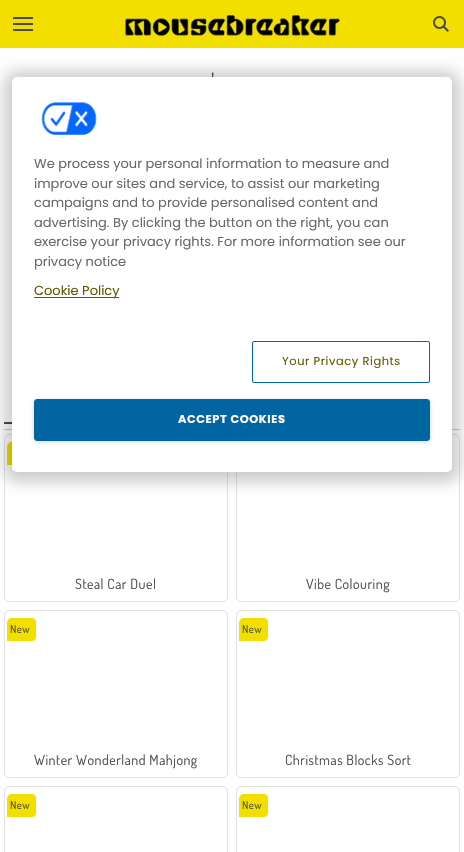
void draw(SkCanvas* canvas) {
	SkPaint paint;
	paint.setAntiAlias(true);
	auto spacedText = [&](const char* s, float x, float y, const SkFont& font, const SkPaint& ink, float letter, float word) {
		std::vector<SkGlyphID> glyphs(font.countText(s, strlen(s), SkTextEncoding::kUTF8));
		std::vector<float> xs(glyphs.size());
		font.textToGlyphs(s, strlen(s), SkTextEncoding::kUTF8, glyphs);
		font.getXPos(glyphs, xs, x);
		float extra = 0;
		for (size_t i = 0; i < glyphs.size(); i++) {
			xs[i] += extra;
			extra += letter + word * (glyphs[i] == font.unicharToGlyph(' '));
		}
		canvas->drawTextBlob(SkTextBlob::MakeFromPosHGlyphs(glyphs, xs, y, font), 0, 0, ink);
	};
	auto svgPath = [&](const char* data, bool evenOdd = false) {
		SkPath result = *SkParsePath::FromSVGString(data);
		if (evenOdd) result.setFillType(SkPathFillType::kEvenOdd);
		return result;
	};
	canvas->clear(0xffffffff);
	paint.setColor(0xfff2df00);
	canvas->drawRect(SkRect::MakeXYWH(0, 0, 464, 48), paint);
	paint.setColor(0xff4a4a4a);
	canvas->drawRect(SkRect::MakeXYWH(13, 17, 20, 2), paint);
	canvas->drawRect(SkRect::MakeXYWH(13, 23, 20, 2), paint);
	canvas->drawRect(SkRect::MakeXYWH(13, 29, 20, 2), paint);
	canvas->drawImageRect(SkImages::DeferredFromEncodedData(SkData::MakeFromFileName("img1.png")), SkRect::MakeXYWH(125, 15, 215, 21), SkSamplingOptions());
	canvas->drawImageRect(SkImages::DeferredFromEncodedData(SkData::MakeFromFileName("img2.png")), SkRect::MakeXYWH(433, 16, 16, 16), SkSamplingOptions());
	SkFont f1(fontMgr->matchFamilyStyle("Dosis", SkFontStyle::Normal()), 24);
	f1.setSubpixel(true);
	spacedText("'", 211, 91, f1, paint, 0.5, 0);
	paint.setColor(0xffcccccc);
	canvas->drawRect(SkRect::MakeXYWH(4, 429, 456, 1), paint);
	paint.setColor(0xff4a4a4a);
	canvas->drawRect(SkRect::MakeXYWH(4, 422, 8, 2), paint);
	paint.setStroke(true);
	paint.setStrokeWidth(1);
	paint.setColor(0xffe2e2e2);
	canvas->drawRoundRect(SkRect::MakeXYWH(4.5, 434.5, 223, 167), 4.5, 4.5, paint);
	paint.setStroke(false);
	paint.setColor(0xfff2df00);
	canvas->drawPath(svgPath("M12 442H32C34 442 36 444 36 446V461C36 463 34 465 32 465H7V447C7 444 9 442 12 442Z"), paint);
	SkFont f2(fontMgr->matchFamilyStyle("Dosis", SkFontStyle::Normal()), 14);
	f2.setSubpixel(true);
	paint.setColor(0xff4a4a4a);
	spacedText("Steal Car Duel", 75, 589, f2, paint, 0.5, 0);
	paint.setStroke(true);
	paint.setColor(0xffe2e2e2);
	canvas->drawRoundRect(SkRect::MakeXYWH(236.5, 434.5, 223, 167), 4.5, 4.5, paint);
	paint.setStroke(false);
	paint.setColor(0xff4a4a4a);
	spacedText("Vibe Colouring", 306, 589, f2, paint, 0.5, 0);
	paint.setStroke(true);
	paint.setColor(0xffe2e2e2);
	canvas->drawRoundRect(SkRect::MakeXYWH(4.5, 610.5, 223, 167), 4.5, 4.5, paint);
	paint.setStroke(false);
	paint.setColor(0xfff2df00);
	canvas->drawPath(svgPath("M12 618H32C34 618 36 620 36 622V637C36 639 34 641 32 641H7V623C7 620 9 618 12 618Z"), paint);
	SkFont f3(fontMgr->matchFamilyStyle("Dosis", SkFontStyle::Normal()), 11);
	f3.setSubpixel(true);
	paint.setColor(0xff424242);
	spacedText("New", 10, 633, f3, paint, 0.5, 0);
	paint.setColor(0xff4a4a4a);
	spacedText("Winter Wonderland Mahjong", 34, 765, f2, paint, 0.5, 0);
	paint.setStroke(true);
	paint.setColor(0xffe2e2e2);
	canvas->drawRoundRect(SkRect::MakeXYWH(236.5, 610.5, 223, 167), 4.5, 4.5, paint);
	paint.setStroke(false);
	paint.setColor(0xfff2df00);
	canvas->drawPath(svgPath("M244 618H264C266 618 268 620 268 622V637C268 639 266 641 264 641H239V623C239 620 241 618 244 618Z"), paint);
	paint.setColor(0xff424242);
	spacedText("New", 242, 633, f3, paint, 0.5, 0);
	paint.setColor(0xff4a4a4a);
	spacedText("Christmas Blocks Sort", 285, 765, f2, paint, 0.5, 0);
	paint.setStroke(true);
	paint.setColor(0xffe2e2e2);
	canvas->drawRoundRect(SkRect::MakeXYWH(4.5, 786.5, 223, 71), 4.5, 4.5, paint);
	paint.setStroke(false);
	paint.setColor(0xfff2df00);
	canvas->drawPath(svgPath("M12 794H32C34 794 36 796 36 798V813C36 815 34 817 32 817H7V799C7 796 9 794 12 794Z"), paint);
	paint.setColor(0xff424242);
	spacedText("New", 10, 809, f3, paint, 0.5, 0);
	paint.setStroke(true);
	paint.setColor(0xffe2e2e2);
	canvas->drawRoundRect(SkRect::MakeXYWH(236.5, 786.5, 223, 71), 4.5, 4.5, paint);
	paint.setStroke(false);
	paint.setColor(0xfff2df00);
	canvas->drawPath(svgPath("M244 794H264C266 794 268 796 268 798V813C268 815 266 817 264 817H239V799C239 796 241 794 244 794Z"), paint);
	paint.setColor(0xff424242);
	spacedText("New", 242, 809, f3, paint, 0.5, 0);
	paint.setColor(0x33000000);
	paint.setMaskFilter(SkMaskFilter::MakeBlur(kNormal_SkBlurStyle, 7.5));
	canvas->drawRoundRect(SkRect::MakeXYWH(4, 71, 456, 411), 13, 13, paint);
	paint.setMaskFilter(nullptr);
	paint.setColor(0xffffffff);
	canvas->drawRoundRect(SkRect::MakeXYWH(12, 77, 440, 395), 5, 5, paint);
	canvas->drawImageRect(SkImages::DeferredFromEncodedData(SkData::MakeFromFileName("img3.png")), SkRect::MakeXYWH(41, 102, 56, 33), SkSamplingOptions());
	SkFont f4(fontMgr->matchFamilyStyle("Poppins", SkFontStyle::Normal()), 13);
	f4.setSubpixel(true);
	paint.setColor(0xff696969);
	canvas->drawString("We process your personal information to measure and", 34, 168, f4, paint);
	canvas->drawString("improve our sites and service, to assist our marketing", 34, 188, f4, paint);
	canvas->drawString("campaigns and to provide personalised content and", 34, 207, f4, paint);
	canvas->drawString("advertising. By clicking the button on the right, you can", 34, 227, f4, paint);
	canvas->drawString("exercise your privacy rights. For more information see our", 34, 246, f4, paint);
	canvas->drawString("privacy notice", 34, 266, f4, paint);
	paint.setColor(0xff625a00);
	canvas->drawRect(SkRect::MakeXYWH(34, 297, 85, 1), paint);
	canvas->drawString("Cookie Policy", 34, 295, f4, paint);
	paint.setStroke(true);
	paint.setColor(0xff0065a0);
	canvas->drawRoundRect(SkRect::MakeXYWH(252.5, 341.5, 177, 41), 1.5, 1.5, paint);
	SkFont f5(fontMgr->matchFamilyStyle("Poppins", SkFontStyle::Normal()), 11.4);
	f5.setSubpixel(true);
	paint.setStroke(false);
	paint.setColor(0xff625a00);
	spacedText("Your Privacy Rights", 282, 365, f5, paint, 0.6, 0);
	paint.setColor(0x29000000);
	paint.setMaskFilter(SkMaskFilter::MakeBlur(kNormal_SkBlurStyle, 2));
	canvas->drawRoundRect(SkRect::MakeXYWH(34, 400, 396, 42), 3, 3, paint);
	paint.setMaskFilter(nullptr);
	paint.setColor(0xff0065a0);
	canvas->drawRoundRect(SkRect::MakeXYWH(34.5, 399.5, 395, 41), 2.5, 2.5, paint);
	paint.setStroke(true);
	canvas->drawRoundRect(SkRect::MakeXYWH(34.5, 399.5, 395, 41), 2.5, 2.5, paint);
	SkFont f6(fontMgr->matchFamilyStyle("Poppins", SkFontStyle::Bold()), 11.4);
	f6.setSubpixel(true);
	paint.setStroke(false);
	paint.setColor(0xffffffff);
	spacedText("ACCEPT COOKIES", 178, 423, f6, paint, 0.6, 0);
}
